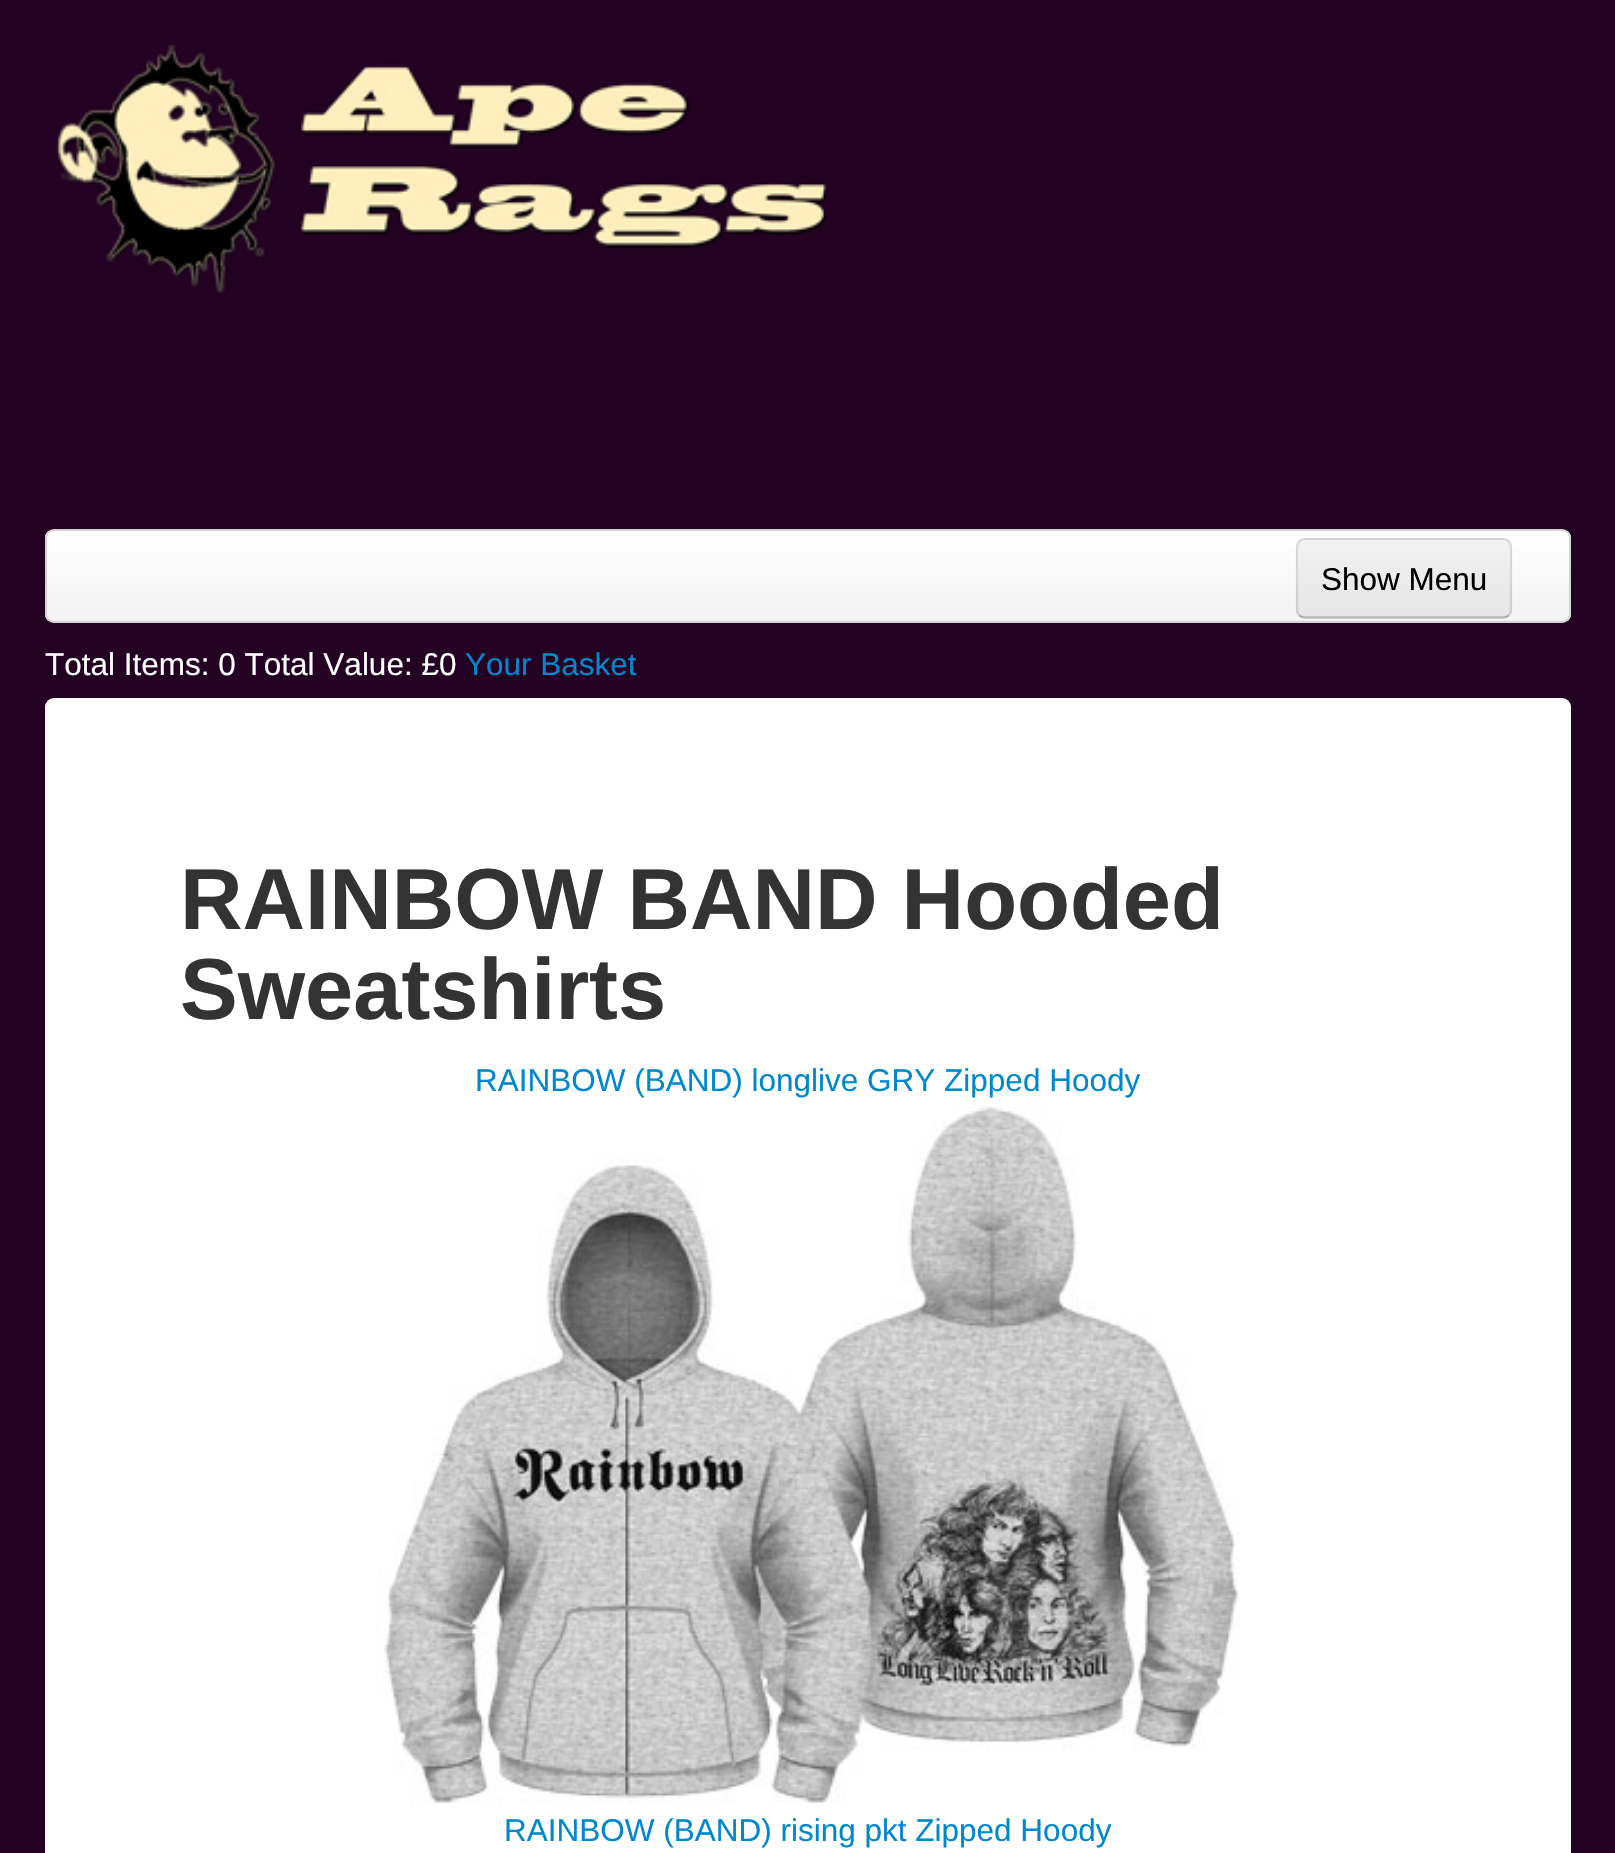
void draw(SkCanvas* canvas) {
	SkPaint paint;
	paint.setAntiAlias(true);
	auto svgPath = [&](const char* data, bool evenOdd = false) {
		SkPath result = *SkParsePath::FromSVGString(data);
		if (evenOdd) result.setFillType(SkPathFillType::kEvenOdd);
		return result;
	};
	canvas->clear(0xff240224);
	canvas->drawImageRect(SkImages::DeferredFromEncodedData(SkData::MakeFromFileName("img1.png")), SkRect::MakeXYWH(48, 45, 778, 248), SkSamplingOptions());
	canvas->save();
	canvas->clipPath(svgPath("M54 529H1562C1567 529 1571 533 1571 538V614C1571 619 1567 623 1562 623H54C49 623 45 619 45 614V538C45 533 49 529 54 529Z"), true);
	{
		const SkColor colors[] = {0xffffffff, 0xfff2f2f2};
		const float stops[] = {0, 1};
		const SkPoint ends[] = {{808, 531}, {808, 621}};
		paint.setShader(SkGradientShader::MakeLinear(ends, colors, stops, 2, SkTileMode::kClamp));
		paint.setAlpha(255);
	}
	canvas->drawRect(SkRect::MakeXYWH(45, 531, 1526, 90), paint);
	canvas->restore();
	paint.setStroke(true);
	paint.setStrokeWidth(2);
	paint.setShader(nullptr);
	paint.setColor(0xffd4d4d4);
	canvas->drawRoundRect(SkRect::MakeXYWH(46, 530, 1524, 92), 8, 8, paint);
	paint.setStroke(false);
	paint.setColor(0xffededed);
	canvas->drawRoundRect(SkRect::MakeXYWH(1296, 538, 216, 81), 9, 9, paint);
	canvas->save();
	canvas->clipPath(svgPath("M1305 538H1503C1508 538 1512 542 1512 547V610C1512 615 1508 619 1503 619H1305C1300 619 1296 615 1296 610V547C1296 542 1300 538 1305 538Z"), true);
	{
		const SkColor colors[] = {0xfff2f2f2, 0xffe5e5e5};
		const float stops[] = {0, 1};
		const SkPoint ends[] = {{1404, 540}, {1404, 617}};
		paint.setShader(SkGradientShader::MakeLinear(ends, colors, stops, 2, SkTileMode::kClamp));
		paint.setAlpha(255);
	}
	canvas->drawRect(SkRect::MakeXYWH(1296, 540, 216, 77), paint);
	canvas->restore();
	paint.setStroke(true);
	paint.setStrokeWidth(2.2);
	paint.setShader(nullptr);
	paint.setColor(0x40000000);
	canvas->drawPath(svgPath("M1508.5 615.5C1507 617 1505 617.5 1503 617.5H1305C1303 617.5 1301 617 1299.5 615.5"), paint);
	paint.setColor(0x1a000000);
	canvas->drawPath(svgPath("M1299.5 615.5C1298 614 1297 612 1297 610V547C1297 544.5 1298 542.5 1299.5 541C1301 539.5 1303 539 1305 539H1503C1505 539 1507 539.5 1508.5 541C1510 542.5 1511 544.5 1511 547V610C1511 612 1510 614 1508.5 615.5"), paint);
	SkFont f1(fontMgr->matchFamilyStyle("Liberation Sans", SkFontStyle::Normal()), 31.5);
	f1.setSubpixel(true);
	paint.setStroke(false);
	paint.setColor(0xff000000);
	canvas->drawString("Show Menu", 1321, 590, f1, paint);
	paint.setColor(0xffffffff);
	canvas->drawString("Total Items: 0 Total Value: £0", 45, 675, f1, paint);
	paint.setColor(0xff0088cc);
	canvas->drawString("Your Basket", 465, 675, f1, paint);
	paint.setColor(0xffffffff);
	canvas->drawRoundRect(SkRect::MakeXYWH(45, 698, 1526, 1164), 9, 9, paint);
	SkFont f2(fontMgr->matchFamilyStyle("Liberation Sans", SkFontStyle::Bold()), 86.6);
	f2.setSubpixel(true);
	paint.setColor(0xff333333);
	canvas->drawString("RAINBOW BAND Hooded", 180, 929, f2, paint);
	canvas->drawString("Sweatshirts", 180, 1019, f2, paint);
	paint.setColor(0xff0088cc);
	canvas->drawString("RAINBOW (BAND) longlive GRY Zipped Hoody", 475, 1091, f1, paint);
	canvas->drawImageRect(SkImages::DeferredFromEncodedData(SkData::MakeFromFileName("img2.png")), SkRect::MakeXYWH(376, 1103, 864, 701), SkSamplingOptions());
	canvas->drawString("RAINBOW (BAND) rising pkt Zipped Hoody", 504, 1841, f1, paint);
	paint.setColor(0xfffafafa);
	canvas->drawRect(SkRect::MakeXYWH(805, 1852, 3, 1), paint);
}
